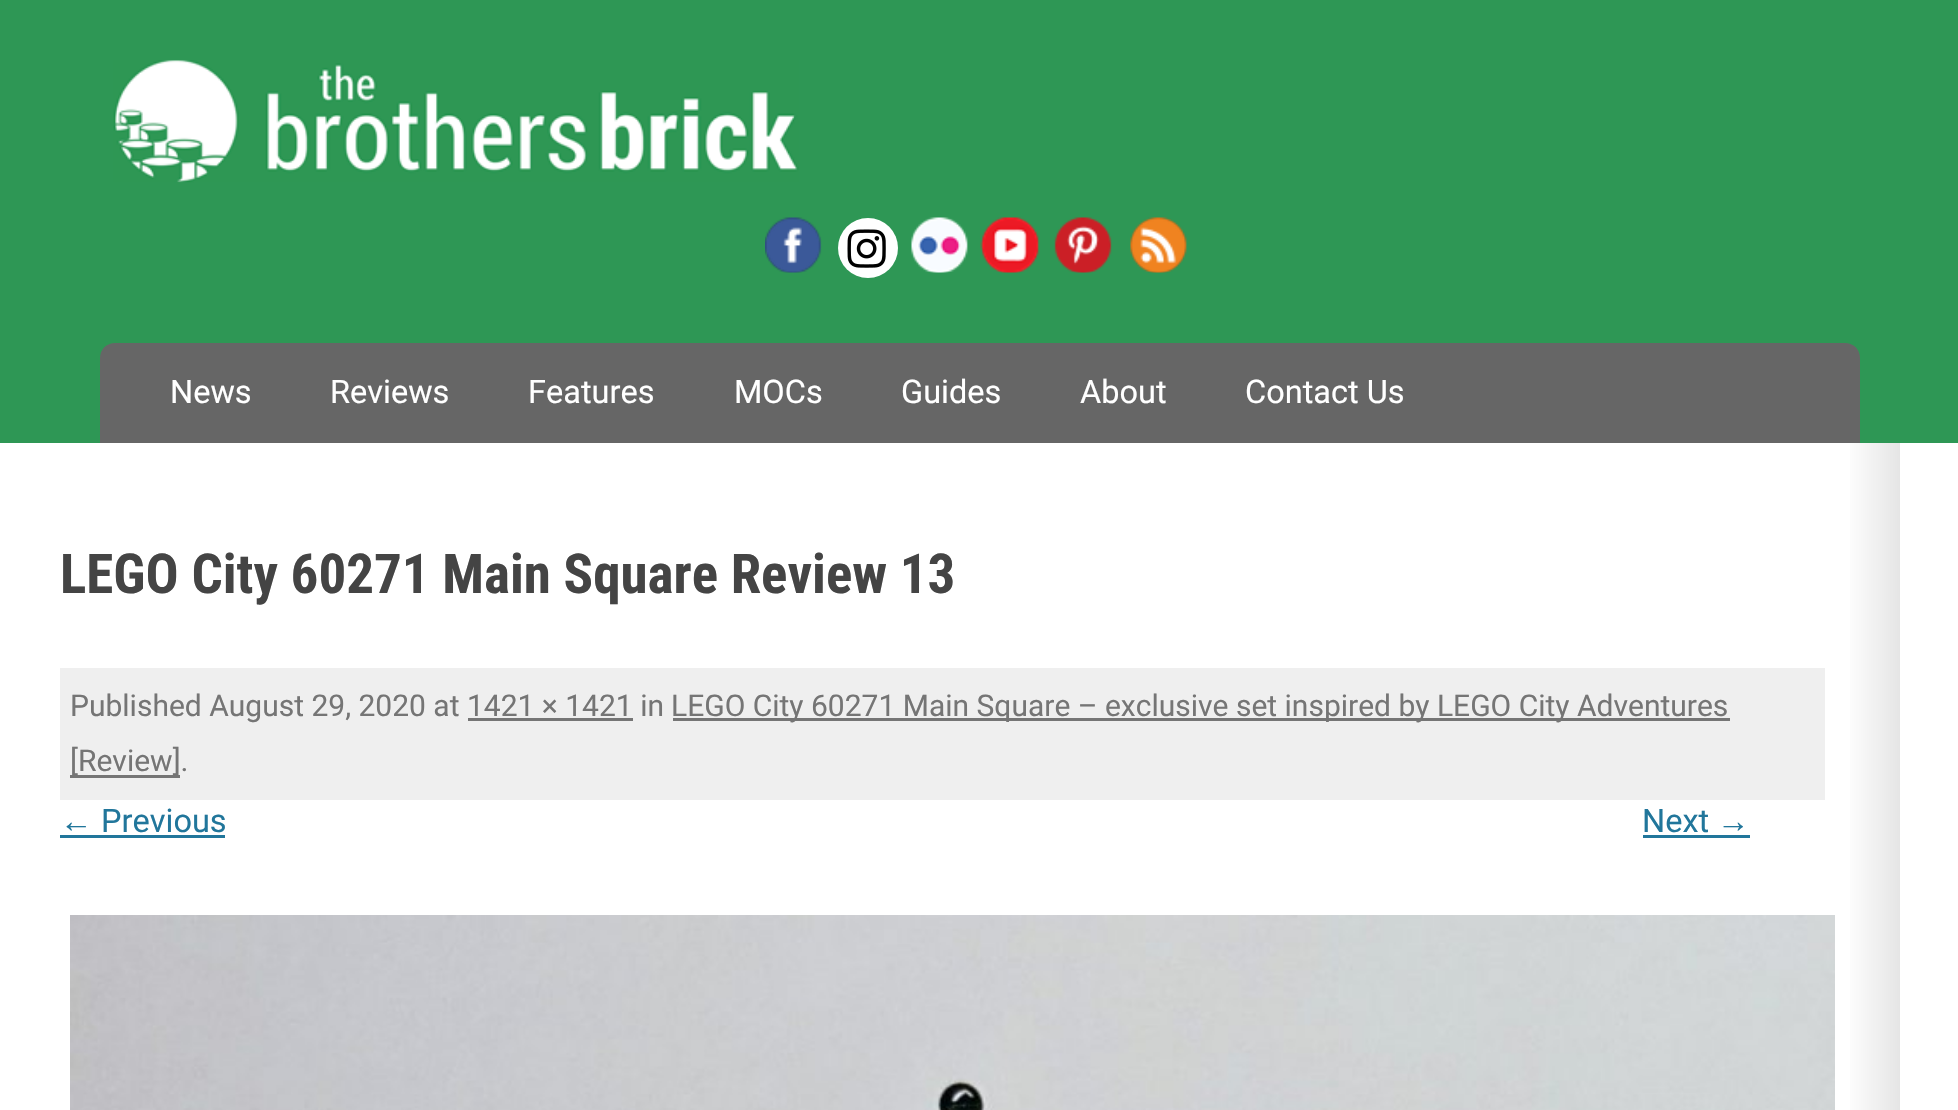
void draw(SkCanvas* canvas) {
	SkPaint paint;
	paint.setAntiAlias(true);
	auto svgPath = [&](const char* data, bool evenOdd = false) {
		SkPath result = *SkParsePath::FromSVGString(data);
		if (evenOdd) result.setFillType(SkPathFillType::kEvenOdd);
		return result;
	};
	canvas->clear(0xffffffff);
	paint.setColor(0xff2e9755);
	canvas->drawRect(SkRect::MakeXYWH(0, 0, 1958, 443), paint);
	canvas->drawImageRect(SkImages::DeferredFromEncodedData(SkData::MakeFromFileName("img1.png")), SkRect::MakeXYWH(113, 60, 686, 123), SkSamplingOptions());
	canvas->drawImageRect(SkImages::DeferredFromEncodedData(SkData::MakeFromFileName("img2.png")), SkRect::MakeXYWH(765, 217, 57, 56), SkSamplingOptions());
	paint.setColor(0xffffffff);
	canvas->drawCircle(868, 248, 30, paint);
	canvas->drawImageRect(SkImages::DeferredFromEncodedData(SkData::MakeFromFileName("img3.png")), SkRect::MakeXYWH(847, 229, 39, 39), SkSamplingOptions());
	canvas->drawImageRect(SkImages::DeferredFromEncodedData(SkData::MakeFromFileName("img4.png")), SkRect::MakeXYWH(911, 217, 57, 56), SkSamplingOptions());
	canvas->drawImageRect(SkImages::DeferredFromEncodedData(SkData::MakeFromFileName("img5.png")), SkRect::MakeXYWH(980, 217, 59, 56), SkSamplingOptions());
	canvas->drawImageRect(SkImages::DeferredFromEncodedData(SkData::MakeFromFileName("img6.png")), SkRect::MakeXYWH(1054, 217, 58, 56), SkSamplingOptions());
	canvas->drawImageRect(SkImages::DeferredFromEncodedData(SkData::MakeFromFileName("img7.png")), SkRect::MakeXYWH(1130, 217, 57, 56), SkSamplingOptions());
	paint.setColor(0xff666666);
	canvas->drawPath(svgPath("M115 343H1845C1853.5 343 1860 349.5 1860 358V443H100V358C100 349.5 106.5 343 115 343Z"), paint);
	SkFont f1(fontMgr->matchFamilyStyle("Roboto", SkFontStyle::Normal()), 32.5);
	f1.setSubpixel(true);
	paint.setColor(0xffffffff);
	canvas->drawString("News", 170, 403, f1, paint);
	canvas->drawString("Reviews", 330, 403, f1, paint);
	canvas->drawString("Features", 528, 403, f1, paint);
	canvas->drawString("MOCs", 734, 403, f1, paint);
	canvas->drawString("Guides", 901, 403, f1, paint);
	canvas->drawString("About", 1080, 403, f1, paint);
	canvas->drawString("Contact Us", 1245, 403, f1, paint);
	{
		const SkColor colors[] = {0xffffffff, 0xffe5e5e5};
		const float stops[] = {0.97, 1};
		const SkPoint ends[] = {{60, 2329}, {1900, 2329}};
		paint.setShader(SkGradientShader::MakeLinear(ends, colors, stops, 2, SkTileMode::kClamp));
		paint.setAlpha(255);
	}
	canvas->drawRect(SkRect::MakeXYWH(1850, 443, 50, 667), paint);
	SkFont f2(fontMgr->matchFamilyStyle("Roboto Condensed", SkFontStyle::Bold()), 55);
	f2.setSubpixel(true);
	paint.setShader(nullptr);
	paint.setColor(0xff444444);
	canvas->drawString("LEGO City 60271 Main Square Review 13", 60, 593, f2, paint);
	paint.setColor(0xffefefef);
	canvas->drawRect(SkRect::MakeXYWH(60, 668, 1765, 132), paint);
	SkFont f3(fontMgr->matchFamilyStyle("Roboto", SkFontStyle::Normal()), 30);
	f3.setSubpixel(true);
	paint.setColor(0xff757575);
	canvas->drawString("Published August 29, 2020 at 1421 × 1421 in", 70, 716, f3, paint);
	canvas->drawRect(SkRect::MakeXYWH(673, 718, 1057, 3), paint);
	canvas->drawString("LEGO City 60271 Main Square – exclusive set inspired by LEGO City Adventures", 671, 716, f3, paint);
	canvas->drawRect(SkRect::MakeXYWH(468, 718, 165, 3), paint);
	canvas->drawRect(SkRect::MakeXYWH(70, 775, 110, 3), paint);
	canvas->drawString("[Review].", 70, 771, f3, paint);
	SkFont f4(fontMgr->matchFamilyStyle("Liberation Sans", SkFontStyle::Normal()), 32.5);
	f4.setSubpixel(true);
	paint.setColor(0xff21769b);
	canvas->drawString("←", 60, 832, f4, paint);
	canvas->drawRect(SkRect::MakeXYWH(60, 835, 165, 3), paint);
	canvas->drawString("Previous", 101, 832, f1, paint);
	canvas->drawString("Next", 1642, 832, f1, paint);
	canvas->drawString("→", 1717, 832, f4, paint);
	canvas->drawRect(SkRect::MakeXYWH(1643, 835, 107, 3), paint);
	canvas->drawImageRect(SkImages::DeferredFromEncodedData(SkData::MakeFromFileName("img8.png")), SkRect::MakeXYWH(70, 915, 1765, 195), SkSamplingOptions());
}
